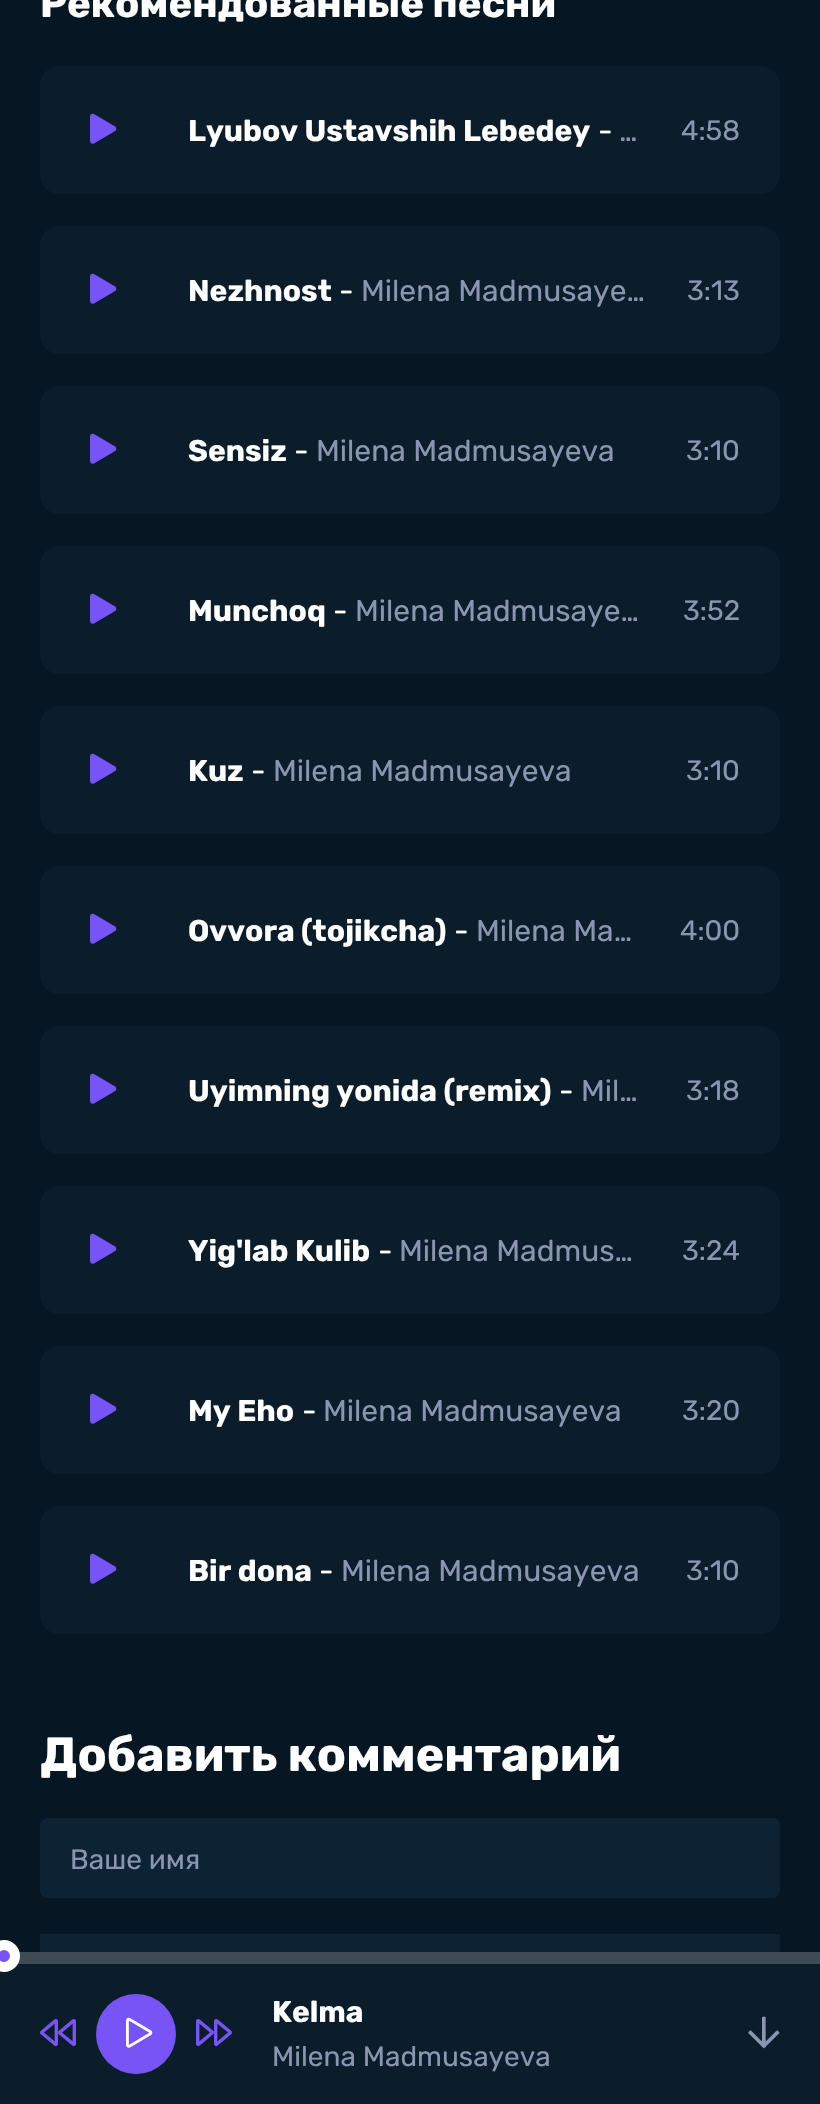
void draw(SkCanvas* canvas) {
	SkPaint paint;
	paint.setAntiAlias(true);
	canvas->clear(0xff061622);
	SkFont f1(fontMgr->matchFamilyStyle("Rubik", SkFontStyle::Bold()), 40);
	f1.setSubpixel(true);
	paint.setColor(0xffffffff);
	canvas->drawString("Рекомендованные песни", 40, 17, f1, paint);
	paint.setColor(0xff0b1d2a);
	canvas->drawRoundRect(SkRect::MakeXYWH(40, 66, 740, 128), 20, 20, paint);
	canvas->drawImageRect(SkImages::DeferredFromEncodedData(SkData::MakeFromFileName("img1.png")), SkRect::MakeXYWH(90, 113, 27, 31), SkSamplingOptions());
	SkFont f2(fontMgr->matchFamilyStyle("Rubik", SkFontStyle::Bold()), 30);
	f2.setSubpixel(true);
	paint.setColor(0xffffffff);
	canvas->drawString("Lyubov Ustavshih Lebedey", 188, 141, f2, paint);
	SkFont f3(fontMgr->matchFamilyStyle("Rubik", SkFontStyle::Normal()), 30);
	f3.setSubpixel(true);
	canvas->drawString("-", 598, 141, f3, paint);
	paint.setColor(0xff8c95b0);
	canvas->drawString("…", 619, 141, f3, paint);
	SkFont f4(fontMgr->matchFamilyStyle("Rubik", SkFontStyle::Normal()), 28);
	f4.setSubpixel(true);
	canvas->drawString("4:58", 681, 140, f4, paint);
	paint.setColor(0xff0b1d2a);
	canvas->drawRoundRect(SkRect::MakeXYWH(40, 226, 740, 128), 20, 20, paint);
	canvas->drawImageRect(SkImages::DeferredFromEncodedData(SkData::MakeFromFileName("img1.png")), SkRect::MakeXYWH(90, 273, 27, 31), SkSamplingOptions());
	paint.setColor(0xffffffff);
	canvas->drawString("Nezhnost", 188, 301, f2, paint);
	canvas->drawString("-", 339, 301, f3, paint);
	paint.setColor(0xff8c95b0);
	canvas->drawString("Milena Madmusaye…", 361, 301, f3, paint);
	canvas->drawString("3:13", 687, 300, f4, paint);
	paint.setColor(0xff0b1d2a);
	canvas->drawRoundRect(SkRect::MakeXYWH(40, 386, 740, 128), 20, 20, paint);
	canvas->drawImageRect(SkImages::DeferredFromEncodedData(SkData::MakeFromFileName("img1.png")), SkRect::MakeXYWH(90, 433, 27, 31), SkSamplingOptions());
	paint.setColor(0xffffffff);
	canvas->drawString("Sensiz", 188, 461, f2, paint);
	canvas->drawString("-", 294, 461, f3, paint);
	paint.setColor(0xff8c95b0);
	canvas->drawString("Milena Madmusayeva", 316, 461, f3, paint);
	canvas->drawString("3:10", 686, 460, f4, paint);
	paint.setColor(0xff0b1d2a);
	canvas->drawRoundRect(SkRect::MakeXYWH(40, 546, 740, 128), 20, 20, paint);
	canvas->drawImageRect(SkImages::DeferredFromEncodedData(SkData::MakeFromFileName("img1.png")), SkRect::MakeXYWH(90, 593, 27, 31), SkSamplingOptions());
	paint.setColor(0xffffffff);
	canvas->drawString("Munchoq", 188, 621, f2, paint);
	canvas->drawString("-", 333, 621, f3, paint);
	paint.setColor(0xff8c95b0);
	canvas->drawString("Milena Madmusaye…", 355, 621, f3, paint);
	canvas->drawString("3:52", 683, 620, f4, paint);
	paint.setColor(0xff0b1d2a);
	canvas->drawRoundRect(SkRect::MakeXYWH(40, 706, 740, 128), 20, 20, paint);
	canvas->drawImageRect(SkImages::DeferredFromEncodedData(SkData::MakeFromFileName("img1.png")), SkRect::MakeXYWH(90, 753, 27, 31), SkSamplingOptions());
	paint.setColor(0xffffffff);
	canvas->drawString("Kuz", 188, 781, f2, paint);
	canvas->drawString("-", 251, 781, f3, paint);
	paint.setColor(0xff8c95b0);
	canvas->drawString("Milena Madmusayeva", 273, 781, f3, paint);
	canvas->drawString("3:10", 686, 780, f4, paint);
	paint.setColor(0xff0b1d2a);
	canvas->drawRoundRect(SkRect::MakeXYWH(40, 866, 740, 128), 20, 20, paint);
	canvas->drawImageRect(SkImages::DeferredFromEncodedData(SkData::MakeFromFileName("img1.png")), SkRect::MakeXYWH(90, 913, 27, 31), SkSamplingOptions());
	paint.setColor(0xffffffff);
	canvas->drawString("Ovvora (tojikcha)", 188, 941, f2, paint);
	canvas->drawString("-", 454, 941, f3, paint);
	paint.setColor(0xff8c95b0);
	canvas->drawString("Milena Ma…", 476, 941, f3, paint);
	canvas->drawString("4:00", 680, 940, f4, paint);
	paint.setColor(0xff0b1d2a);
	canvas->drawRoundRect(SkRect::MakeXYWH(40, 1026, 740, 128), 20, 20, paint);
	canvas->drawImageRect(SkImages::DeferredFromEncodedData(SkData::MakeFromFileName("img1.png")), SkRect::MakeXYWH(90, 1073, 27, 31), SkSamplingOptions());
	paint.setColor(0xffffffff);
	canvas->drawString("Uyimning yonida (remix)", 188, 1101, f2, paint);
	canvas->drawString("-", 559, 1101, f3, paint);
	paint.setColor(0xff8c95b0);
	canvas->drawString("Mil…", 581, 1101, f3, paint);
	canvas->drawString("3:18", 686, 1100, f4, paint);
	paint.setColor(0xff0b1d2a);
	canvas->drawRoundRect(SkRect::MakeXYWH(40, 1186, 740, 128), 20, 20, paint);
	canvas->drawImageRect(SkImages::DeferredFromEncodedData(SkData::MakeFromFileName("img1.png")), SkRect::MakeXYWH(90, 1233, 27, 31), SkSamplingOptions());
	paint.setColor(0xffffffff);
	canvas->drawString("Yig'lab Kulib", 188, 1261, f2, paint);
	canvas->drawString("-", 378, 1261, f3, paint);
	paint.setColor(0xff8c95b0);
	canvas->drawString("Milena Madmus…", 399, 1261, f3, paint);
	canvas->drawString("3:24", 682, 1260, f4, paint);
	paint.setColor(0xff0b1d2a);
	canvas->drawRoundRect(SkRect::MakeXYWH(40, 1346, 740, 128), 20, 20, paint);
	canvas->drawImageRect(SkImages::DeferredFromEncodedData(SkData::MakeFromFileName("img1.png")), SkRect::MakeXYWH(90, 1393, 27, 31), SkSamplingOptions());
	paint.setColor(0xffffffff);
	canvas->drawString("My Eho", 188, 1421, f2, paint);
	canvas->drawString("-", 302, 1421, f3, paint);
	paint.setColor(0xff8c95b0);
	canvas->drawString("Milena Madmusayeva", 323, 1421, f3, paint);
	canvas->drawString("3:20", 682, 1420, f4, paint);
	paint.setColor(0xff0b1d2a);
	canvas->drawRoundRect(SkRect::MakeXYWH(40, 1506, 740, 128), 20, 20, paint);
	canvas->drawImageRect(SkImages::DeferredFromEncodedData(SkData::MakeFromFileName("img1.png")), SkRect::MakeXYWH(90, 1553, 27, 31), SkSamplingOptions());
	paint.setColor(0xffffffff);
	canvas->drawString("Bir dona", 188, 1581, f2, paint);
	canvas->drawString("-", 319, 1581, f3, paint);
	paint.setColor(0xff8c95b0);
	canvas->drawString("Milena Madmusayeva", 341, 1581, f3, paint);
	canvas->drawString("3:10", 686, 1580, f4, paint);
	SkFont f5(fontMgr->matchFamilyStyle("Rubik", SkFontStyle::Bold()), 48);
	f5.setSubpixel(true);
	paint.setColor(0xffffffff);
	canvas->drawString("Добавить комментарий", 40, 1771, f5, paint);
	paint.setColor(0xff0d2334);
	canvas->drawRoundRect(SkRect::MakeXYWH(40, 1818, 740, 80), 8, 8, paint);
	paint.setColor(0xff8c95b0);
	canvas->drawString("Ваше имя", 70, 1869, f4, paint);
	paint.setColor(0xff0d2334);
	canvas->drawRect(SkRect::MakeXYWH(40, 1934, 740, 18), paint);
	paint.setColor(0xff0b1d2a);
	canvas->drawRect(SkRect::MakeXYWH(0, 1964, 820, 140), paint);
	paint.setColor(0xff3e4a54);
	canvas->drawRect(SkRect::MakeXYWH(17, 1952, 803, 12), paint);
	paint.setColor(0xff7854f6);
	canvas->drawCircle(4, 1956, 11, paint);
	paint.setStroke(true);
	paint.setStrokeWidth(10);
	paint.setColor(0xffffffff);
	canvas->drawCircle(4, 1956, 11, paint);
	canvas->drawImageRect(SkImages::DeferredFromEncodedData(SkData::MakeFromFileName("img2.png")), SkRect::MakeXYWH(40, 2019, 36, 27), SkSamplingOptions());
	paint.setStroke(false);
	paint.setColor(0xff7854f6);
	canvas->drawCircle(136, 2034, 40, paint);
	canvas->drawImageRect(SkImages::DeferredFromEncodedData(SkData::MakeFromFileName("img3.png")), SkRect::MakeXYWH(126, 2017, 27, 31), SkSamplingOptions());
	canvas->drawImageRect(SkImages::DeferredFromEncodedData(SkData::MakeFromFileName("img4.png")), SkRect::MakeXYWH(196, 2019, 36, 27), SkSamplingOptions());
	paint.setColor(0xffffffff);
	canvas->drawString("Kelma", 272, 2022, f2, paint);
	paint.setColor(0xff8c95b0);
	canvas->drawString("Milena Madmusayeva", 272, 2066, f4, paint);
	canvas->drawImageRect(SkImages::DeferredFromEncodedData(SkData::MakeFromFileName("img5.png")), SkRect::MakeXYWH(748, 2016, 32, 33), SkSamplingOptions());
}
